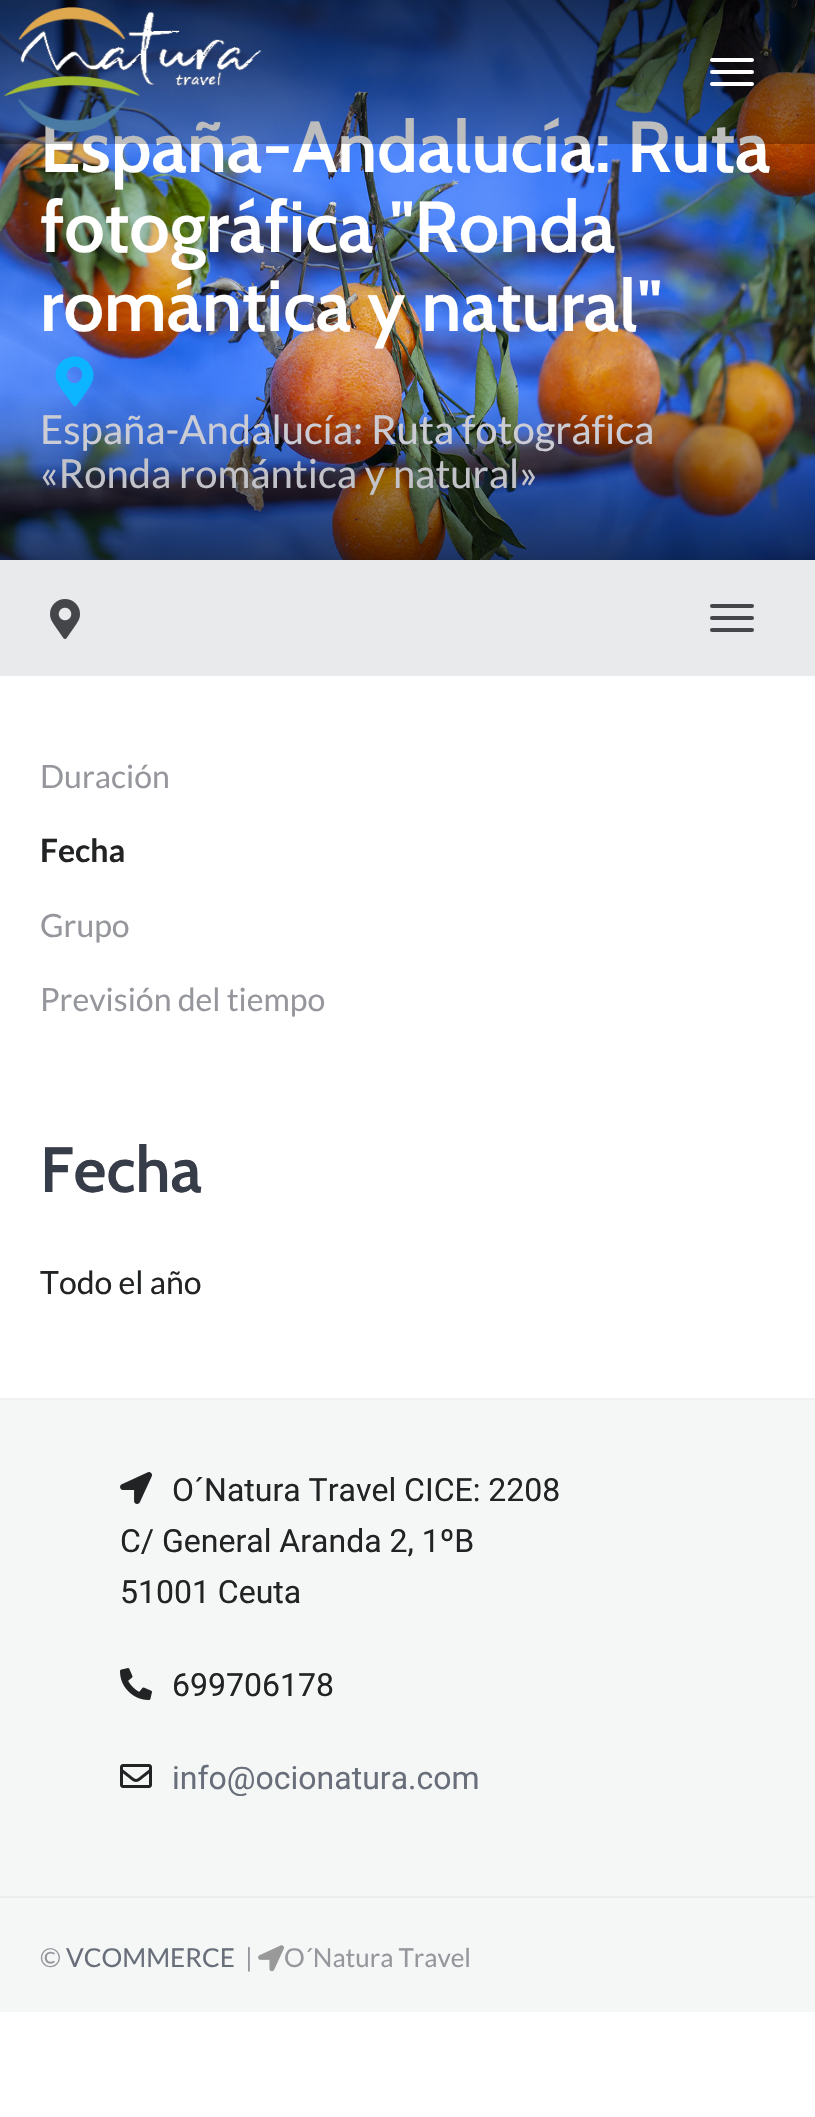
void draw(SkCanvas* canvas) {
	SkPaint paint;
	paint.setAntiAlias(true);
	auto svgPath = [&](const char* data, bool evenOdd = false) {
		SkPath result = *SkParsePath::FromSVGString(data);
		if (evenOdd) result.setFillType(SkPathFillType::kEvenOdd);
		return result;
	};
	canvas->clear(0xffffffff);
	canvas->drawImageRect(SkImages::DeferredFromEncodedData(SkData::MakeFromFileName("img2.png")), SkRect::MakeXYWH(0, 0, 815, 560), SkSamplingOptions());
	SkFont f1(fontMgr->matchFamilyStyle("Cabin", SkFontStyle(600, SkFontStyle::kNormal_Width, SkFontStyle::kUpright_Slant)), 72);
	f1.setSubpixel(true);
	paint.setColor(0xffffffff);
	canvas->drawString("España-Andalucía: Ruta", 40, 172, f1, paint);
	paint.setColor(0x42000000);
	canvas->drawRect(SkRect::MakeXYWH(0, 0, 815, 144), paint);
	canvas->drawImageRect(SkImages::DeferredFromEncodedData(SkData::MakeFromFileName("img1.png")), SkRect::MakeXYWH(3, 7, 259, 126), SkSamplingOptions());
	paint.setColor(0xffffffff);
	canvas->drawRoundRect(SkRect::MakeXYWH(710, 58, 44, 4), 2, 2, paint);
	canvas->drawRoundRect(SkRect::MakeXYWH(710, 70, 44, 4), 2, 2, paint);
	canvas->drawRoundRect(SkRect::MakeXYWH(710, 82, 44, 4), 2, 2, paint);
	canvas->drawString("fotográfica \"Ronda", 40, 252, f1, paint);
	canvas->drawString("romántica y natural\"", 40, 331, f1, paint);
	paint.setColor(0xff0db4ff);
	canvas->drawPath(svgPath("M73 405C69 399 58 386 56 379C52 359 79 348 90 365C99 377 89 388 82 398L76 406C75 407 73 406 73 405ZM69 381C76 388 87 377 80 369C73 362 62 373 69 381Z"), paint);
	SkFont f2(fontMgr->matchFamilyStyle("Lato", SkFontStyle::Normal()), 40);
	f2.setSubpixel(true);
	paint.setColor(0xffccccd5);
	canvas->drawString("España-Andalucía: Ruta fotográfica", 40, 444, f2, paint);
	paint.setColor(0xffc2c3c9);
	canvas->drawString("«Ronda romántica y natural»", 40, 488, f2, paint);
	paint.setColor(0xffe9eaeb);
	canvas->drawRect(SkRect::MakeXYWH(0, 560, 815, 116), paint);
	canvas->drawImageRect(SkImages::DeferredFromEncodedData(SkData::MakeFromFileName("img3.png")), SkRect::MakeXYWH(50, 599, 30, 40), SkSamplingOptions());
	paint.setColor(0xff444649);
	canvas->drawRoundRect(SkRect::MakeXYWH(710, 604, 44, 4), 2, 2, paint);
	canvas->drawRoundRect(SkRect::MakeXYWH(710, 616, 44, 4), 2, 2, paint);
	canvas->drawRoundRect(SkRect::MakeXYWH(710, 628, 44, 4), 2, 2, paint);
	SkFont f3(fontMgr->matchFamilyStyle("Lato", SkFontStyle::Normal()), 32);
	f3.setSubpixel(true);
	paint.setColor(0xff95979c);
	canvas->drawString("Duración", 40, 788, f3, paint);
	SkFont f4(fontMgr->matchFamilyStyle("Lato", SkFontStyle::Bold()), 32);
	f4.setSubpixel(true);
	paint.setColor(0xff222324);
	canvas->drawString("Fecha", 40, 862, f4, paint);
	paint.setColor(0xff95979c);
	canvas->drawString("Grupo", 40, 937, f3, paint);
	canvas->drawString("Previsión del tiempo", 40, 1011, f3, paint);
	SkFont f5(fontMgr->matchFamilyStyle("Cabin", SkFontStyle(600, SkFontStyle::kNormal_Width, SkFontStyle::kUpright_Slant)), 64);
	f5.setSubpixel(true);
	paint.setColor(0xff363c48);
	canvas->drawString("Fecha", 40, 1192, f5, paint);
	paint.setColor(0xff222324);
	canvas->drawString("Todo el año", 40, 1294, f3, paint);
	paint.setColor(0xfff1f1f1);
	canvas->drawRect(SkRect::MakeXYWH(0, 1398, 815, 2), paint);
	paint.setColor(0xfff5f6f6);
	canvas->drawRect(SkRect::MakeXYWH(0, 1400, 815, 496), paint);
	canvas->drawImageRect(SkImages::DeferredFromEncodedData(SkData::MakeFromFileName("img4.png")), SkRect::MakeXYWH(120, 1472, 32, 32), SkSamplingOptions());
	SkFont f6(fontMgr->matchFamilyStyle("Roboto", SkFontStyle::Normal()), 32);
	f6.setSubpixel(true);
	paint.setColor(0xff222324);
	canvas->drawString("O´Natura Travel CICE: 2208", 172, 1501, f6, paint);
	canvas->drawString("C/ General Aranda 2, 1ºB", 120, 1552, f6, paint);
	canvas->drawString("51001 Ceuta", 120, 1603, f6, paint);
	canvas->drawImageRect(SkImages::DeferredFromEncodedData(SkData::MakeFromFileName("img5.png")), SkRect::MakeXYWH(120, 1668, 32, 32), SkSamplingOptions());
	canvas->drawString("699706178", 172, 1696, f6, paint);
	canvas->drawImageRect(SkImages::DeferredFromEncodedData(SkData::MakeFromFileName("img6.png")), SkRect::MakeXYWH(120, 1764, 32, 24), SkSamplingOptions());
	paint.setColor(0xff696f7a);
	canvas->drawString("info@ocionatura.com", 172, 1789, f6, paint);
	paint.setColor(0xfff5f6f6);
	canvas->drawRect(SkRect::MakeXYWH(0, 1898, 815, 114), paint);
	paint.setColor(0xffebecec);
	canvas->drawRect(SkRect::MakeXYWH(0, 1896, 815, 2), paint);
	SkFont f7(fontMgr->matchFamilyStyle("Lato", SkFontStyle::Normal()), 26);
	f7.setSubpixel(true);
	paint.setColor(0xff95979c);
	canvas->drawString("©", 40, 1967, f7, paint);
	paint.setColor(0xff696f7a);
	canvas->drawString("VCOMMERCE", 66, 1967, f7, paint);
	paint.setColor(0xff95979c);
	canvas->drawString("|", 245, 1967, f7, paint);
	canvas->drawImageRect(SkImages::DeferredFromEncodedData(SkData::MakeFromFileName("img7.png")), SkRect::MakeXYWH(258, 1945, 26, 27), SkSamplingOptions());
	canvas->drawString("O´Natura Travel", 284, 1967, f7, paint);
}
